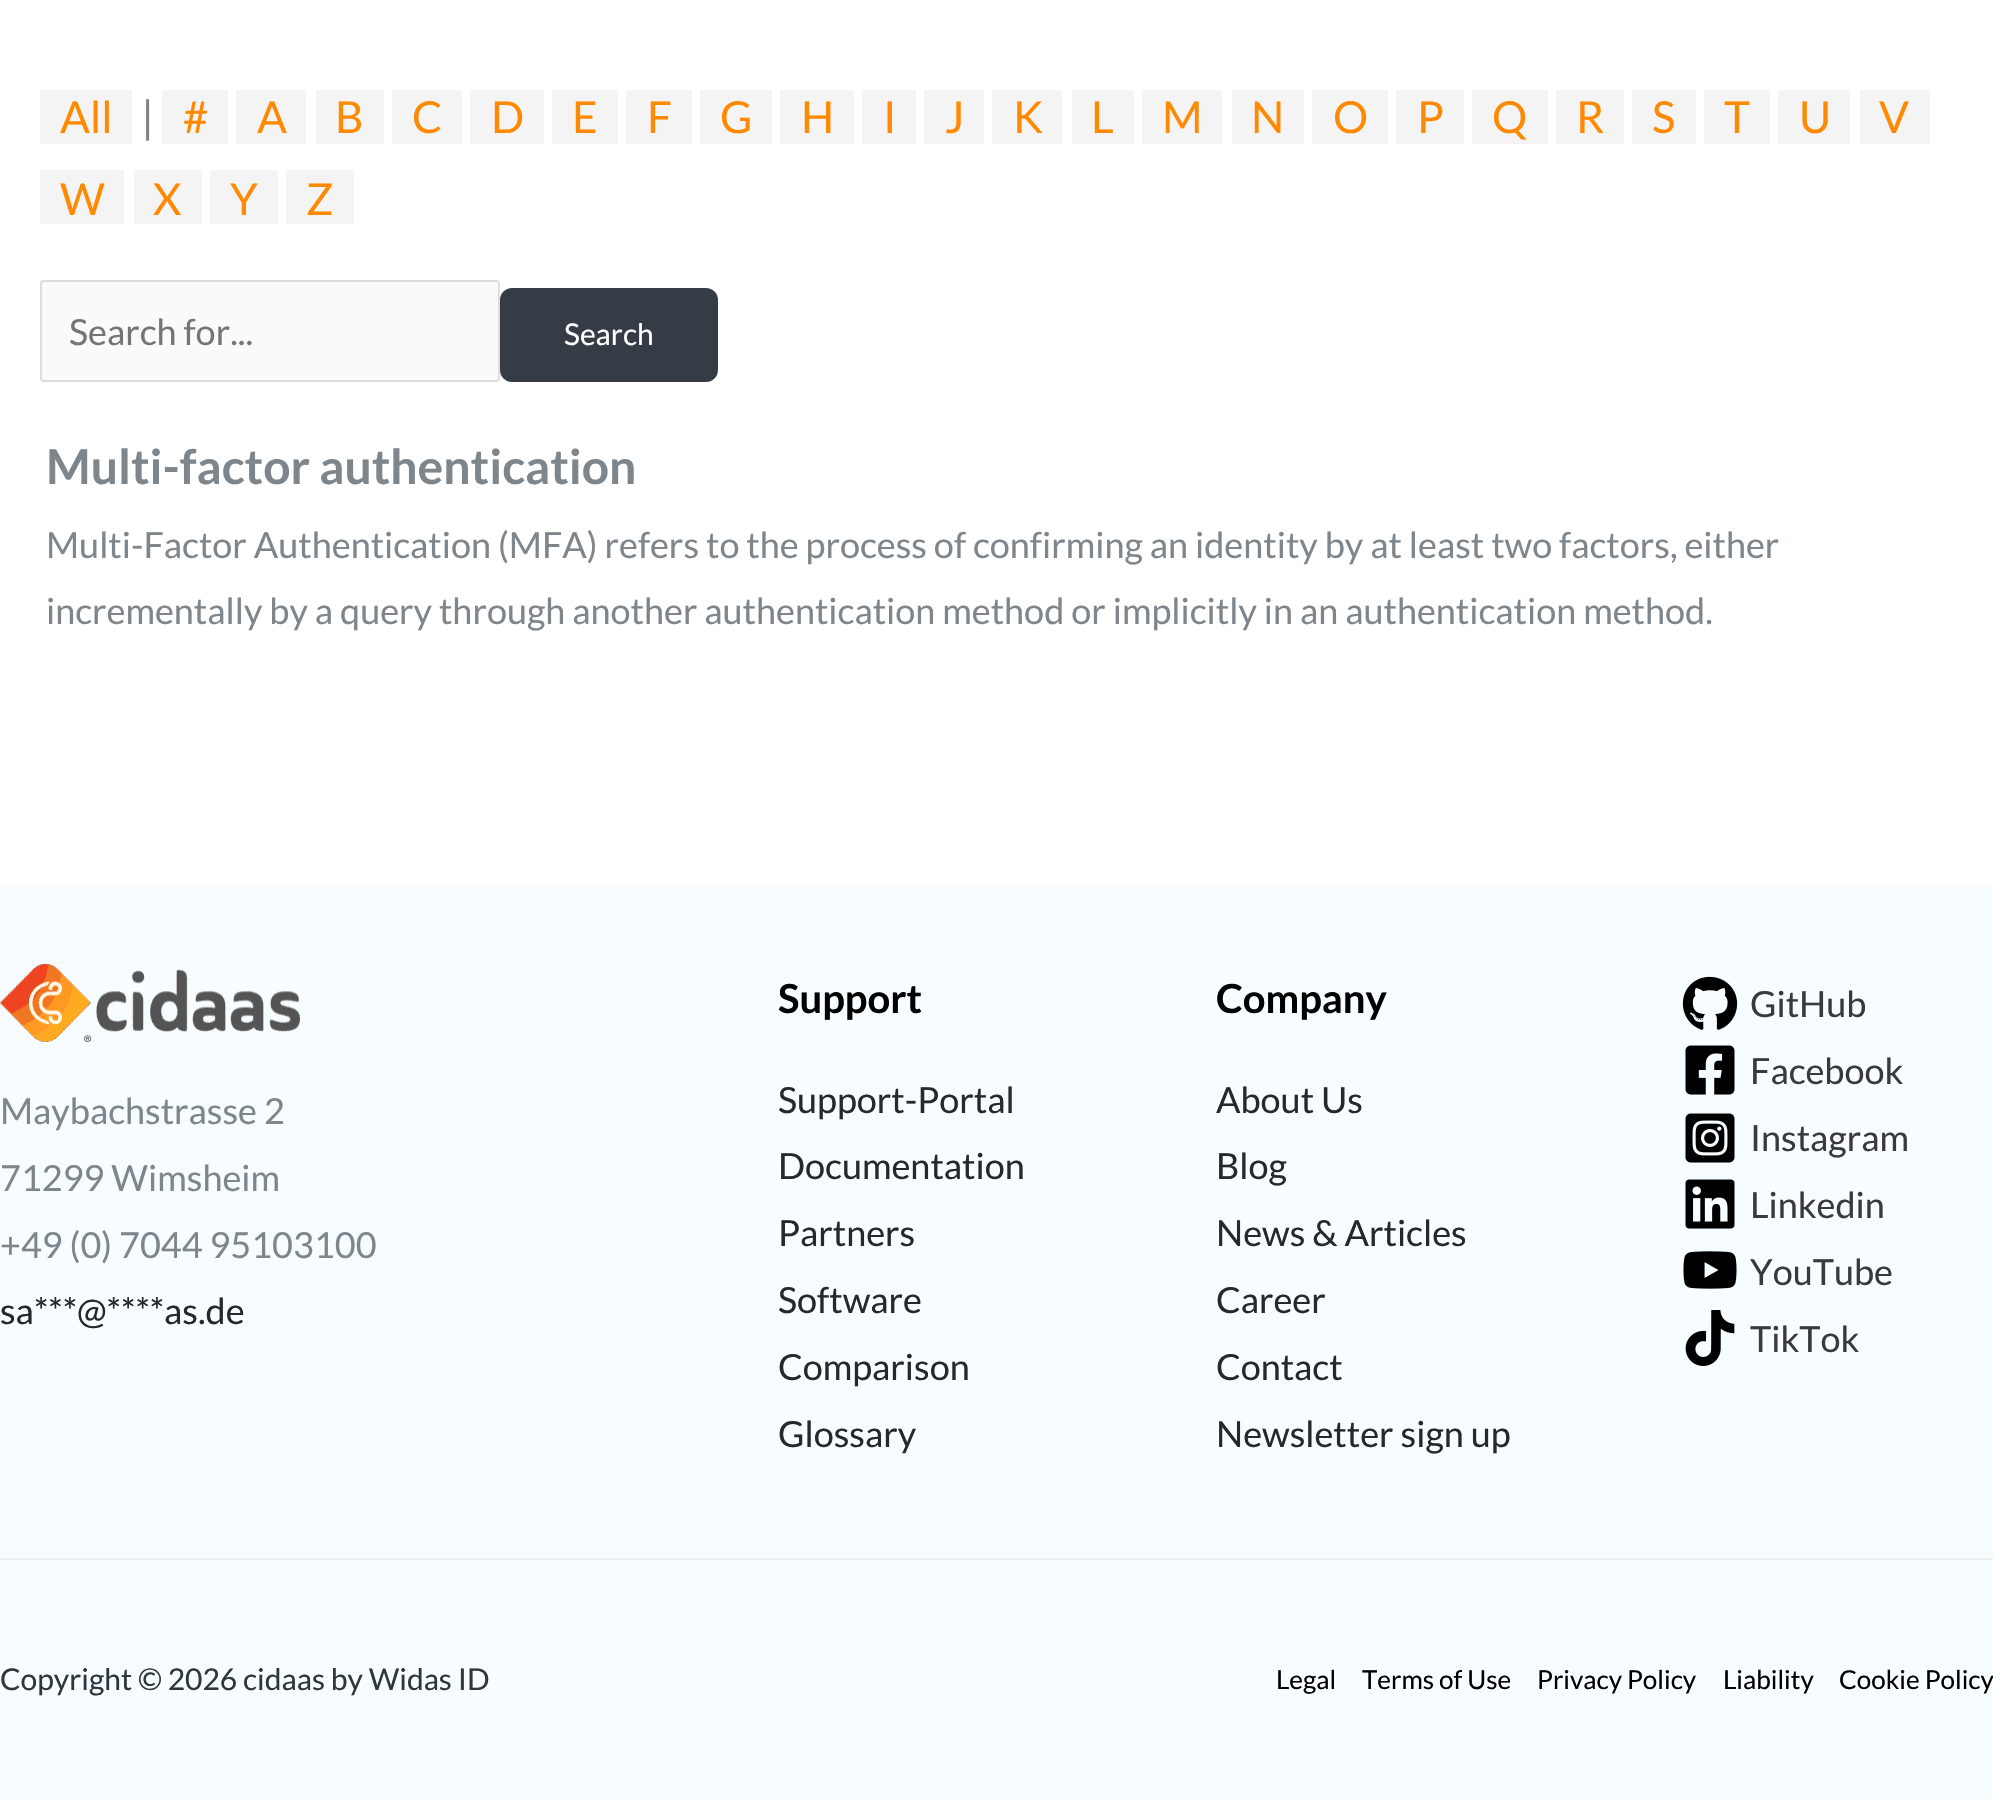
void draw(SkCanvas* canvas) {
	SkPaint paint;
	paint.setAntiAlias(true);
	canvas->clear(0xffffffff);
	paint.setColor(0xfff4f4f4);
	canvas->drawRect(SkRect::MakeXYWH(40, 90, 92, 54), paint);
	SkFont f1(fontMgr->matchFamilyStyle("Lato", SkFontStyle::Normal()), 44);
	f1.setSubpixel(true);
	paint.setColor(0xffff8900);
	canvas->drawString("All", 60, 133, f1, paint);
	paint.setColor(0xff7e868c);
	canvas->drawString("|", 141, 133, f1, paint);
	paint.setColor(0xfff4f4f4);
	canvas->drawRect(SkRect::MakeXYWH(162, 90, 66, 54), paint);
	paint.setColor(0xffff8900);
	canvas->drawString("#", 183, 133, f1, paint);
	paint.setColor(0xfff4f4f4);
	canvas->drawRect(SkRect::MakeXYWH(236, 90, 70, 54), paint);
	paint.setColor(0xffff8900);
	canvas->drawString("A", 257, 133, f1, paint);
	paint.setColor(0xfff4f4f4);
	canvas->drawRect(SkRect::MakeXYWH(316, 90, 68, 54), paint);
	paint.setColor(0xffff8900);
	canvas->drawString("B", 335, 133, f1, paint);
	paint.setColor(0xfff4f4f4);
	canvas->drawRect(SkRect::MakeXYWH(392, 90, 70, 54), paint);
	paint.setColor(0xffff8900);
	canvas->drawString("C", 412, 133, f1, paint);
	paint.setColor(0xfff4f4f4);
	canvas->drawRect(SkRect::MakeXYWH(470, 90, 74, 54), paint);
	paint.setColor(0xffff8900);
	canvas->drawString("D", 491, 133, f1, paint);
	paint.setColor(0xfff4f4f4);
	canvas->drawRect(SkRect::MakeXYWH(552, 90, 66, 54), paint);
	paint.setColor(0xffff8900);
	canvas->drawString("E", 572, 133, f1, paint);
	paint.setColor(0xfff4f4f4);
	canvas->drawRect(SkRect::MakeXYWH(626, 90, 66, 54), paint);
	paint.setColor(0xffff8900);
	canvas->drawString("F", 647, 133, f1, paint);
	paint.setColor(0xfff4f4f4);
	canvas->drawRect(SkRect::MakeXYWH(700, 90, 72, 54), paint);
	paint.setColor(0xffff8900);
	canvas->drawString("G", 720, 133, f1, paint);
	paint.setColor(0xfff4f4f4);
	canvas->drawRect(SkRect::MakeXYWH(780, 90, 74, 54), paint);
	paint.setColor(0xffff8900);
	canvas->drawString("H", 801, 133, f1, paint);
	paint.setColor(0xfff4f4f4);
	canvas->drawRect(SkRect::MakeXYWH(862, 90, 54, 54), paint);
	paint.setColor(0xffff8900);
	canvas->drawString("I", 883, 133, f1, paint);
	paint.setColor(0xfff4f4f4);
	canvas->drawRect(SkRect::MakeXYWH(924, 90, 60, 54), paint);
	paint.setColor(0xffff8900);
	canvas->drawString("J", 945, 133, f1, paint);
	paint.setColor(0xfff4f4f4);
	canvas->drawRect(SkRect::MakeXYWH(992, 90, 70, 54), paint);
	paint.setColor(0xffff8900);
	canvas->drawString("K", 1013, 133, f1, paint);
	paint.setColor(0xfff4f4f4);
	canvas->drawRect(SkRect::MakeXYWH(1072, 90, 62, 54), paint);
	paint.setColor(0xffff8900);
	canvas->drawString("L", 1091, 133, f1, paint);
	paint.setColor(0xfff4f4f4);
	canvas->drawRect(SkRect::MakeXYWH(1142, 90, 80, 54), paint);
	paint.setColor(0xffff8900);
	canvas->drawString("M", 1162, 133, f1, paint);
	paint.setColor(0xfff4f4f4);
	canvas->drawRect(SkRect::MakeXYWH(1232, 90, 72, 54), paint);
	paint.setColor(0xffff8900);
	canvas->drawString("N", 1251, 133, f1, paint);
	paint.setColor(0xfff4f4f4);
	canvas->drawRect(SkRect::MakeXYWH(1312, 90, 76, 54), paint);
	paint.setColor(0xffff8900);
	canvas->drawString("O", 1333, 133, f1, paint);
	paint.setColor(0xfff4f4f4);
	canvas->drawRect(SkRect::MakeXYWH(1396, 90, 68, 54), paint);
	paint.setColor(0xffff8900);
	canvas->drawString("P", 1417, 133, f1, paint);
	paint.setColor(0xfff4f4f4);
	canvas->drawRect(SkRect::MakeXYWH(1472, 90, 76, 54), paint);
	paint.setColor(0xffff8900);
	canvas->drawString("Q", 1492, 133, f1, paint);
	paint.setColor(0xfff4f4f4);
	canvas->drawRect(SkRect::MakeXYWH(1556, 90, 68, 54), paint);
	paint.setColor(0xffff8900);
	canvas->drawString("R", 1576, 133, f1, paint);
	paint.setColor(0xfff4f4f4);
	canvas->drawRect(SkRect::MakeXYWH(1632, 90, 64, 54), paint);
	paint.setColor(0xffff8900);
	canvas->drawString("S", 1652, 133, f1, paint);
	paint.setColor(0xfff4f4f4);
	canvas->drawRect(SkRect::MakeXYWH(1704, 90, 66, 54), paint);
	paint.setColor(0xffff8900);
	canvas->drawString("T", 1724, 133, f1, paint);
	paint.setColor(0xfff4f4f4);
	canvas->drawRect(SkRect::MakeXYWH(1778, 90, 72, 54), paint);
	paint.setColor(0xffff8900);
	canvas->drawString("U", 1799, 133, f1, paint);
	paint.setColor(0xfff4f4f4);
	canvas->drawRect(SkRect::MakeXYWH(1860, 90, 70, 54), paint);
	paint.setColor(0xffff8900);
	canvas->drawString("V", 1879, 133, f1, paint);
	paint.setColor(0xfff4f4f4);
	canvas->drawRect(SkRect::MakeXYWH(40, 170, 84, 54), paint);
	paint.setColor(0xffff8900);
	canvas->drawString("W", 60, 215, f1, paint);
	paint.setColor(0xfff4f4f4);
	canvas->drawRect(SkRect::MakeXYWH(134, 170, 68, 54), paint);
	paint.setColor(0xffff8900);
	canvas->drawString("X", 153, 215, f1, paint);
	paint.setColor(0xfff4f4f4);
	canvas->drawRect(SkRect::MakeXYWH(210, 170, 68, 54), paint);
	paint.setColor(0xffff8900);
	canvas->drawString("Y", 230, 215, f1, paint);
	paint.setColor(0xfff4f4f4);
	canvas->drawRect(SkRect::MakeXYWH(286, 170, 68, 54), paint);
	paint.setColor(0xffff8900);
	canvas->drawString("Z", 306, 215, f1, paint);
	paint.setColor(0xfffafafa);
	canvas->drawRoundRect(SkRect::MakeXYWH(41, 281, 458, 100), 3, 3, paint);
	paint.setStroke(true);
	paint.setStrokeWidth(2);
	paint.setColor(0xffdddddd);
	canvas->drawRoundRect(SkRect::MakeXYWH(41, 281, 458, 100), 3, 3, paint);
	SkFont f2(fontMgr->matchFamilyStyle("Lato", SkFontStyle::Normal()), 36);
	f2.setSubpixel(true);
	paint.setStroke(false);
	paint.setColor(0xff757575);
	canvas->drawString("Search for...", 69, 345, f2, paint);
	paint.setColor(0xff363c45);
	canvas->drawRoundRect(SkRect::MakeXYWH(500, 288, 218, 94), 12, 12, paint);
	SkFont f3(fontMgr->matchFamilyStyle("Lato", SkFontStyle::Normal()), 30);
	f3.setSubpixel(true);
	paint.setColor(0xffffffff);
	canvas->drawString("Search", 564, 345, f3, paint);
	SkFont f4(fontMgr->matchFamilyStyle("Lato", SkFontStyle::Bold()), 48);
	f4.setSubpixel(true);
	paint.setColor(0xff7e868c);
	canvas->drawString("Multi-factor authentication", 46, 484, f4, paint);
	canvas->drawString("Multi-Factor Authentication (MFA) refers to the process of confirming an identity by at least two factors, either", 46, 558, f2, paint);
	canvas->drawString("incrementally by a query through another authentication method or implicitly in an authentication method.", 46, 624, f2, paint);
	paint.setColor(0xfff6fcff);
	canvas->drawRect(SkRect::MakeXYWH(0, 886, 1993, 913), paint);
	canvas->drawImageRect(SkImages::DeferredFromEncodedData(SkData::MakeFromFileName("img1.png")), SkRect::MakeXYWH(0, 964, 300, 78), SkSamplingOptions());
	paint.setColor(0xff7e868c);
	canvas->drawString("Maybachstrasse 2", 0, 1124, f2, paint);
	canvas->drawString("71299 Wimsheim", 0, 1191, f2, paint);
	canvas->drawString("+49 (0) 7044 95103100", 0, 1258, f2, paint);
	paint.setColor(0xff24292e);
	canvas->drawString("sa***", 0, 1324, f2, paint);
	canvas->drawString("@****", 77, 1324, f2, paint);
	canvas->drawString("as.de", 164, 1324, f2, paint);
	SkFont f5(fontMgr->matchFamilyStyle("Lato", SkFontStyle::Bold()), 40);
	f5.setSubpixel(true);
	paint.setColor(0xff000000);
	canvas->drawString("Support", 778, 1013, f5, paint);
	paint.setColor(0xff24292e);
	canvas->drawString("Support-Portal", 778, 1113, f2, paint);
	canvas->drawString("Documentation", 778, 1179, f2, paint);
	canvas->drawString("Partners", 778, 1246, f2, paint);
	canvas->drawString("Software", 778, 1313, f2, paint);
	canvas->drawString("Comparison", 778, 1380, f2, paint);
	canvas->drawString("Glossary", 778, 1447, f2, paint);
	paint.setColor(0xff000000);
	canvas->drawString("Company", 1216, 1013, f5, paint);
	paint.setColor(0xff24292e);
	canvas->drawString("About Us", 1216, 1113, f2, paint);
	canvas->drawString("Blog", 1216, 1179, f2, paint);
	canvas->drawString("News & Articles", 1216, 1246, f2, paint);
	canvas->drawString("Career", 1216, 1313, f2, paint);
	canvas->drawString("Contact", 1216, 1380, f2, paint);
	canvas->drawString("Newsletter sign up", 1216, 1447, f2, paint);
	canvas->drawImageRect(SkImages::DeferredFromEncodedData(SkData::MakeFromFileName("img2.png")), SkRect::MakeXYWH(1682, 976, 56, 54), SkSamplingOptions());
	paint.setColor(0xff3a3a3a);
	canvas->drawString("GitHub", 1750, 1017, f2, paint);
	canvas->drawImageRect(SkImages::DeferredFromEncodedData(SkData::MakeFromFileName("img3.png")), SkRect::MakeXYWH(1685, 1045, 50, 50), SkSamplingOptions());
	canvas->drawString("Facebook", 1750, 1084, f2, paint);
	canvas->drawImageRect(SkImages::DeferredFromEncodedData(SkData::MakeFromFileName("img4.png")), SkRect::MakeXYWH(1685, 1113, 50, 50), SkSamplingOptions());
	canvas->drawString("Instagram", 1750, 1151, f2, paint);
	canvas->drawImageRect(SkImages::DeferredFromEncodedData(SkData::MakeFromFileName("img5.png")), SkRect::MakeXYWH(1685, 1179, 50, 50), SkSamplingOptions());
	canvas->drawString("Linkedin", 1750, 1218, f2, paint);
	canvas->drawImageRect(SkImages::DeferredFromEncodedData(SkData::MakeFromFileName("img6.png")), SkRect::MakeXYWH(1683, 1251, 54, 38), SkSamplingOptions());
	canvas->drawString("YouTube", 1750, 1285, f2, paint);
	canvas->drawImageRect(SkImages::DeferredFromEncodedData(SkData::MakeFromFileName("img7.png")), SkRect::MakeXYWH(1685, 1310, 50, 56), SkSamplingOptions());
	canvas->drawString("TikTok", 1750, 1352, f2, paint);
	paint.setColor(0xffeeeeee);
	canvas->drawRect(SkRect::MakeXYWH(0, 1558, 1993, 2), paint);
	paint.setColor(0xff2f373d);
	canvas->drawString("Copyright © 2026 cidaas by Widas ID", 0, 1690, f3, paint);
	SkFont f6(fontMgr->matchFamilyStyle("Lato", SkFontStyle::Normal()), 26);
	f6.setSubpixel(true);
	paint.setColor(0xff000000);
	canvas->drawString("Legal", 1276, 1689, f6, paint);
	canvas->drawString("Terms of Use", 1362, 1689, f6, paint);
	canvas->drawString("Privacy Policy", 1537, 1689, f6, paint);
	canvas->drawString("Liability", 1723, 1689, f6, paint);
	canvas->drawString("Cookie Policy", 1839, 1689, f6, paint);
}
